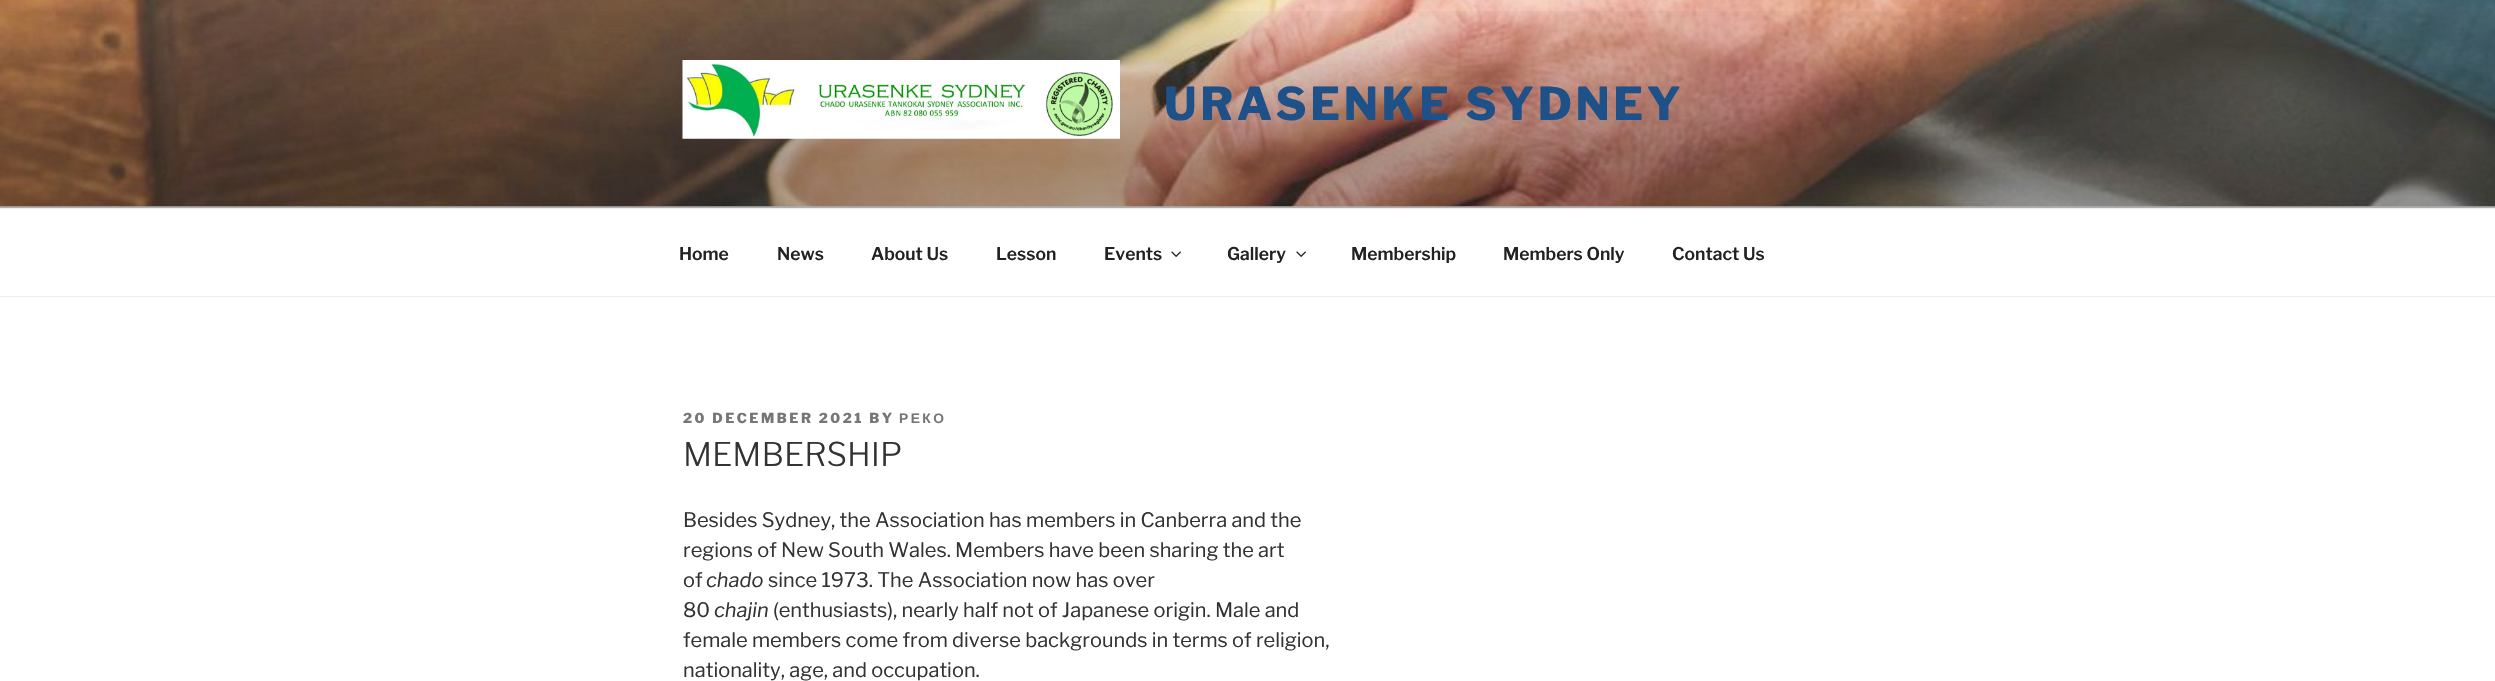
void draw(SkCanvas* canvas) {
	SkPaint paint;
	paint.setAntiAlias(true);
	auto spacedText = [&](const char* s, float x, float y, const SkFont& font, const SkPaint& ink, float letter, float word) {
		std::vector<SkGlyphID> glyphs(font.countText(s, strlen(s), SkTextEncoding::kUTF8));
		std::vector<float> xs(glyphs.size());
		font.textToGlyphs(s, strlen(s), SkTextEncoding::kUTF8, glyphs);
		font.getXPos(glyphs, xs, x);
		float extra = 0;
		for (size_t i = 0; i < glyphs.size(); i++) {
			xs[i] += extra;
			extra += letter + word * (glyphs[i] == font.unicharToGlyph(' '));
		}
		canvas->drawTextBlob(SkTextBlob::MakeFromPosHGlyphs(glyphs, xs, y, font), 0, 0, ink);
	};
	canvas->clear(0xffffffff);
	paint.setColor(0xfffafafa);
	canvas->drawRect(SkRect::MakeXYWH(0, 206, 2495, 2), paint);
	canvas->drawImageRect(SkImages::DeferredFromEncodedData(SkData::MakeFromFileName("img1.png")), SkRect::MakeXYWH(0, 0, 2495, 207), SkSamplingOptions());
	{
		const SkColor colors[] = {0x00000000, 0x4d000000, 0x4d000000};
		const float stops[] = {0, 0.75, 1};
		const SkPoint ends[] = {{1248, 0}, {1248, 208}};
		paint.setShader(SkGradientShader::MakeLinear(ends, colors, stops, 3, SkTileMode::kClamp));
		paint.setAlpha(255);
	}
	canvas->drawRect(SkRect::MakeXYWH(0, 11, 2495, 197), paint);
	canvas->drawImageRect(SkImages::DeferredFromEncodedData(SkData::MakeFromFileName("img2.png")), SkRect::MakeXYWH(682, 60, 438, 79), SkSamplingOptions());
	SkFont f1(fontMgr->matchFamilyStyle("Libre Franklin", SkFontStyle(100, SkFontStyle::kNormal_Width, SkFontStyle::kUpright_Slant)), 45);
	f1.setSubpixel(true);
	paint.setShader(nullptr);
	paint.setColor(0xff1f5189);
	spacedText("URASENKE SYDNEY", 1164, 120, f1, paint, 3.6, 0);
	paint.setColor(0xffeeeeee);
	canvas->drawRect(SkRect::MakeXYWH(0, 208, 2495, 1), paint);
	canvas->drawRect(SkRect::MakeXYWH(0, 296, 2495, 1), paint);
	SkFont f2(fontMgr->matchFamilyStyle("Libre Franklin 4", SkFontStyle(100, SkFontStyle::kNormal_Width, SkFontStyle::kUpright_Slant)), 17.5);
	f2.setSubpixel(true);
	paint.setColor(0xff222222);
	canvas->drawString("Home", 679, 260, f2, paint);
	canvas->drawString("News", 777, 260, f2, paint);
	canvas->drawString("About Us", 871, 260, f2, paint);
	canvas->drawString("Lesson", 996, 260, f2, paint);
	canvas->drawString("Events", 1104, 260, f2, paint);
	canvas->drawImageRect(SkImages::DeferredFromEncodedData(SkData::MakeFromFileName("img3.png")), SkRect::MakeXYWH(1171, 251, 10, 6), SkSamplingOptions());
	canvas->drawString("Gallery", 1227, 260, f2, paint);
	canvas->drawImageRect(SkImages::DeferredFromEncodedData(SkData::MakeFromFileName("img3.png")), SkRect::MakeXYWH(1296, 251, 10, 6), SkSamplingOptions());
	canvas->drawString("Membership", 1351, 260, f2, paint);
	canvas->drawString("Members Only", 1503, 260, f2, paint);
	canvas->drawString("Contact Us", 1672, 260, f2, paint);
	SkFont f3(fontMgr->matchFamilyStyle("Libre Franklin", SkFontStyle(100, SkFontStyle::kNormal_Width, SkFontStyle::kUpright_Slant)), 13.75);
	f3.setSubpixel(true);
	paint.setColor(0xff767676);
	spacedText("20 DECEMBER 2021 BY", 683, 423, f3, paint, 2.5, 0);
	SkFont f4(fontMgr->matchFamilyStyle("Liberation Sans", SkFontStyle::Bold()), 13.75);
	f4.setSubpixel(true);
	spacedText("РЕКО", 899, 423, f4, paint, 2.5, 0);
	SkFont f5(fontMgr->matchFamilyStyle("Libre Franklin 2", SkFontStyle(100, SkFontStyle::kNormal_Width, SkFontStyle::kUpright_Slant)), 32.5);
	f5.setSubpixel(true);
	paint.setColor(0xff333333);
	canvas->drawString("MEMBERSHIP", 683, 466, f5, paint);
	SkFont f6(fontMgr->matchFamilyStyle("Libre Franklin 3", SkFontStyle(100, SkFontStyle::kNormal_Width, SkFontStyle::kUpright_Slant)), 20);
	f6.setSubpixel(true);
	canvas->drawString("Besides Sydney, the Association has members in Canberra and the", 683, 527, f6, paint);
	canvas->drawString("regions of New South Wales. Members have been sharing the art", 683, 557, f6, paint);
	canvas->drawString("of", 683, 587, f6, paint);
	SkFont f7(fontMgr->matchFamilyStyle("Libre Franklin", SkFontStyle(100, SkFontStyle::kNormal_Width, SkFontStyle::kItalic_Slant)), 20);
	f7.setSubpixel(true);
	canvas->drawString("chado", 706, 587, f7, paint);
	canvas->drawString("since 1973. The Association now has over", 768, 587, f6, paint);
	canvas->drawString("80", 683, 617, f6, paint);
	canvas->drawString("chajin", 714, 617, f7, paint);
	canvas->drawString("(enthusiasts), nearly half not of Japanese origin. Male and", 773, 617, f6, paint);
	canvas->drawString("female members come from diverse backgrounds in terms of religion,", 683, 647, f6, paint);
	canvas->drawString("nationality, age, and occupation.", 683, 677, f6, paint);
}
